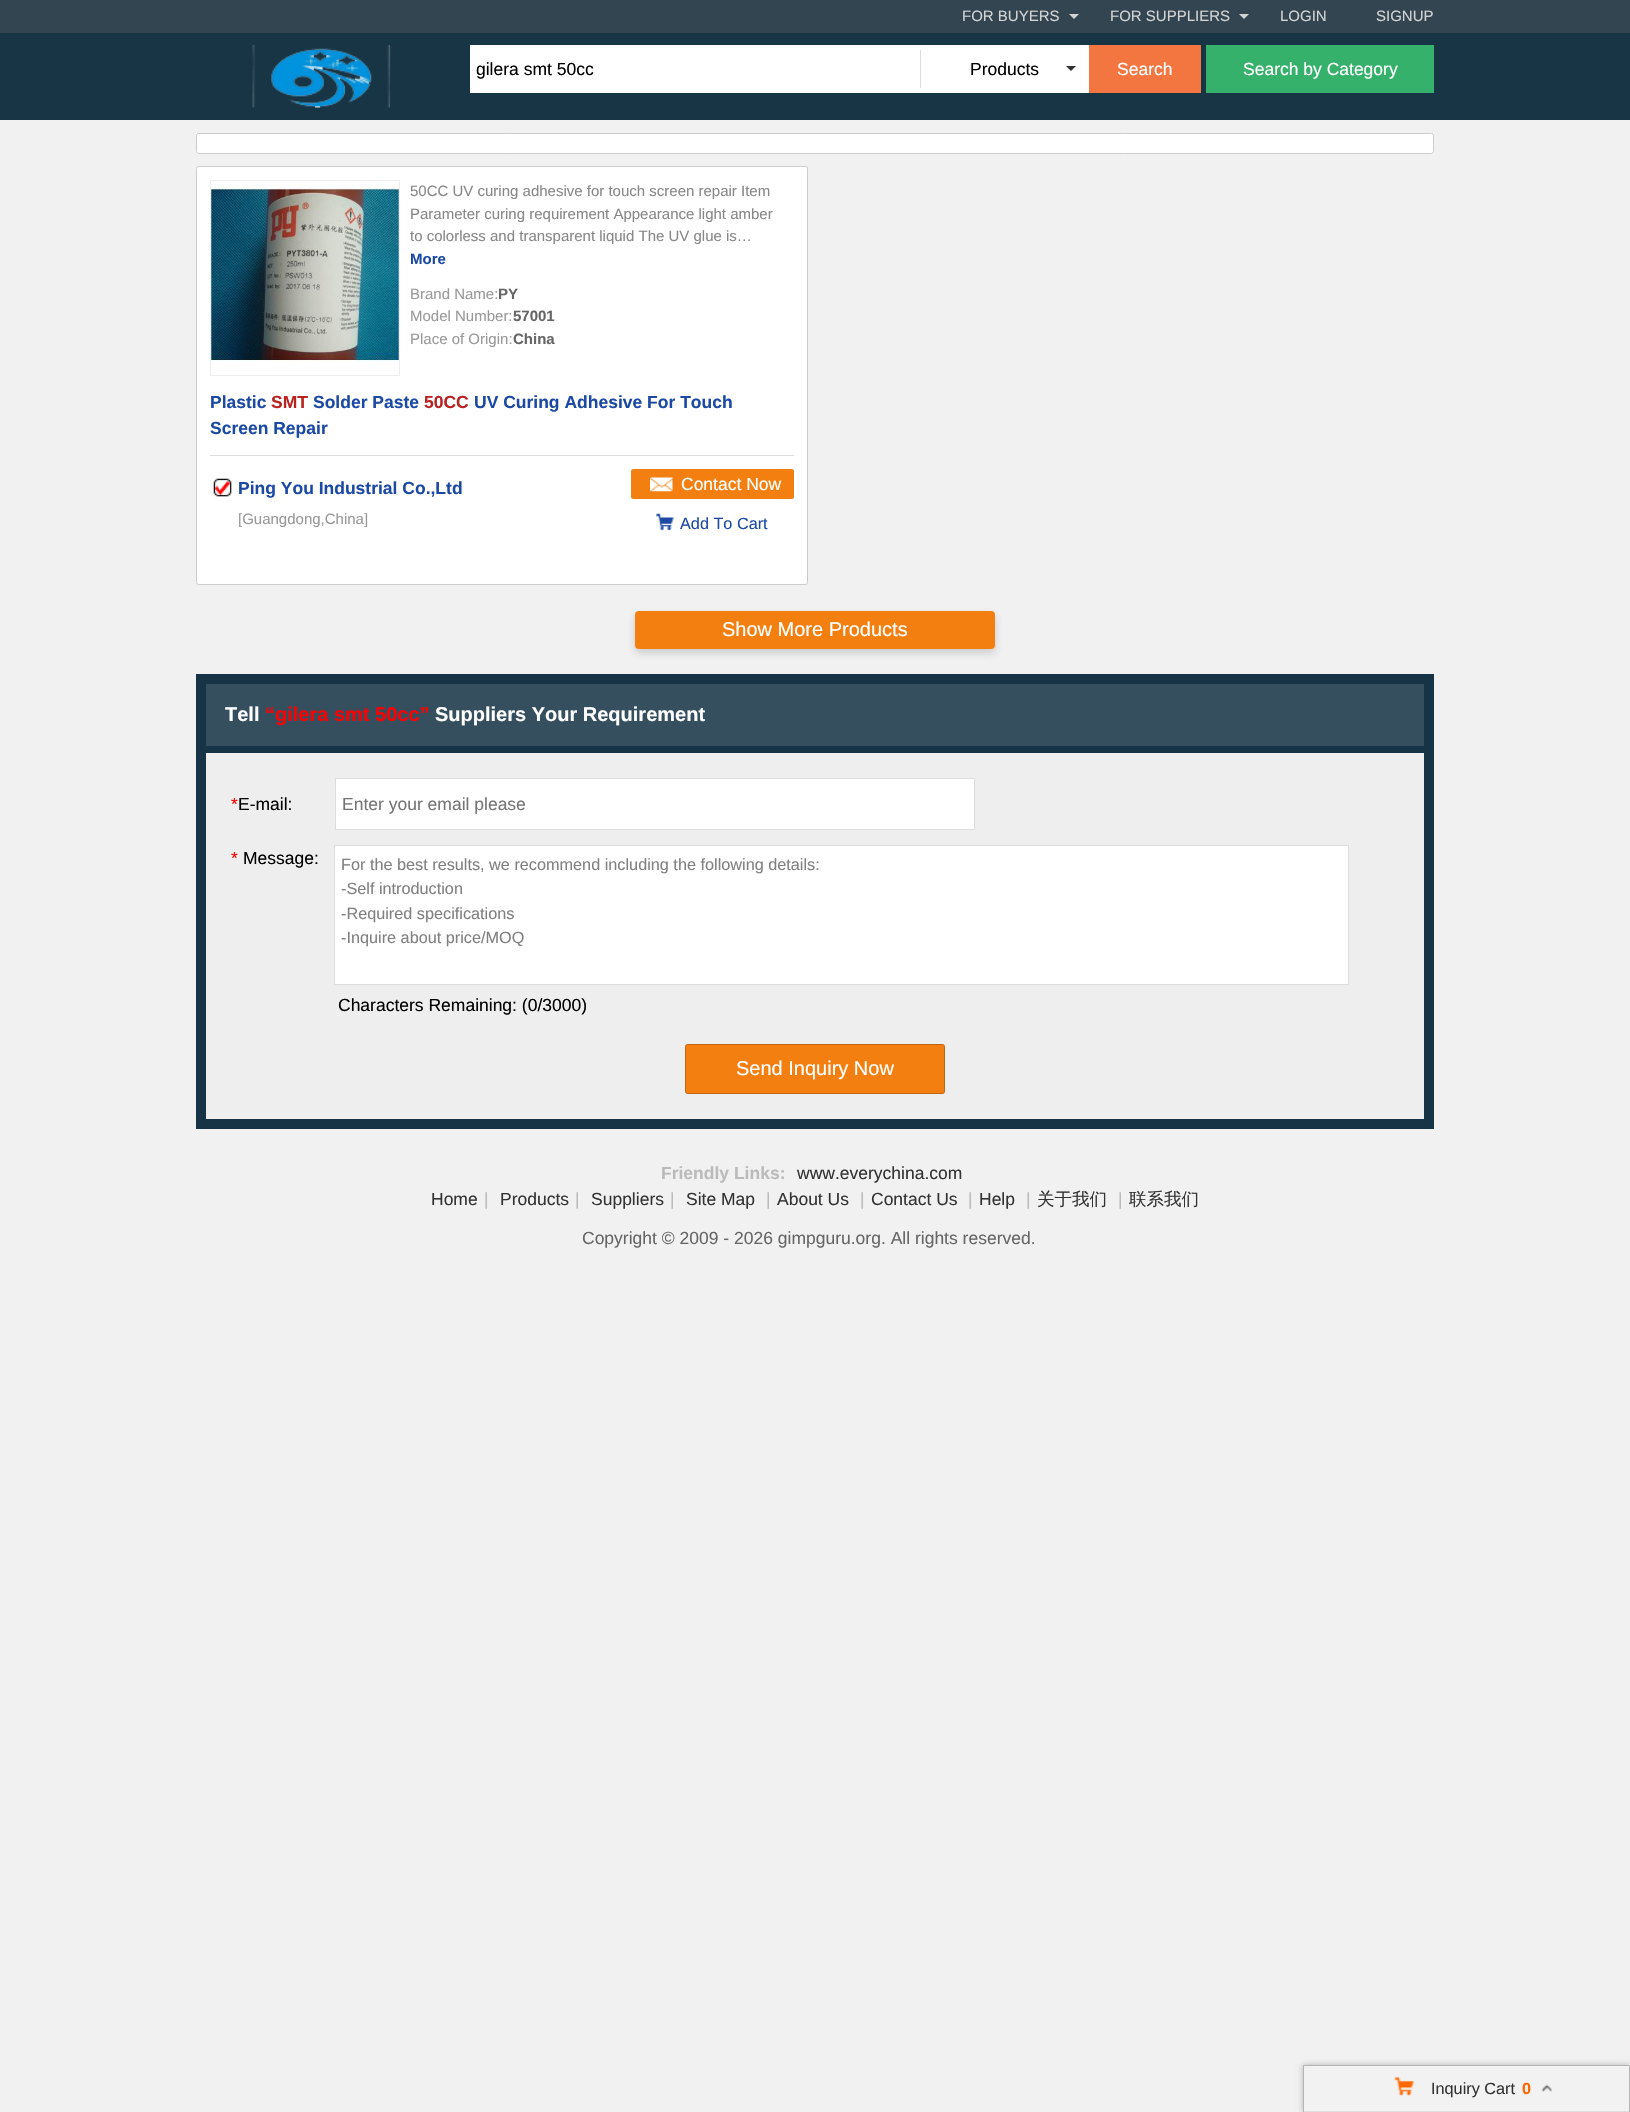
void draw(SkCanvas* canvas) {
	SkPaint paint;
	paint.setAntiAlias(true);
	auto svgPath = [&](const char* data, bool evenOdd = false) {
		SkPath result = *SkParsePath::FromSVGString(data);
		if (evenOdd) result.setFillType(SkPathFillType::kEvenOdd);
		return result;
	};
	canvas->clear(0xfff1f1f1);
	paint.setColor(0xff183546);
	canvas->drawRect(SkRect::MakeXYWH(0, 33, 1630, 87), paint);
	paint.setColor(0xff324551);
	canvas->drawRect(SkRect::MakeXYWH(0, 0, 1630, 33), paint);
	SkFont f1(fontMgr->matchFamilyStyle("Liberation Sans", SkFontStyle::Normal()), 15);
	f1.setSubpixel(true);
	paint.setColor(0xffd3d3d3);
	canvas->drawString("FOR BUYERS", 962, 21, f1, paint);
	canvas->drawPath(svgPath("M1069 14H1079L1074 19Z"), paint);
	canvas->drawString("FOR SUPPLIERS", 1110, 21, f1, paint);
	canvas->drawPath(svgPath("M1239 14H1249L1244 19Z"), paint);
	canvas->drawString("LOGIN", 1280, 21, f1, paint);
	canvas->drawString("SIGNUP", 1376, 21, f1, paint);
	canvas->drawImageRect(SkImages::DeferredFromEncodedData(SkData::MakeFromFileName("img1.png")), SkRect::MakeXYWH(252, 45, 139, 63), SkSamplingOptions());
	paint.setColor(0xffffffff);
	canvas->drawRect(SkRect::MakeXYWH(470, 45, 619, 48), paint);
	SkFont f2(fontMgr->matchFamilyStyle("Liberation Sans", SkFontStyle::Normal()), 17.5);
	f2.setSubpixel(true);
	paint.setColor(0xff000000);
	canvas->drawString("gilera smt 50cc", 476, 75, f2, paint);
	paint.setColor(0xffdddddd);
	canvas->drawRect(SkRect::MakeXYWH(920, 50, 1, 38), paint);
	paint.setColor(0xff000000);
	canvas->drawString("Products", 970, 75, f2, paint);
	paint.setColor(0xff333333);
	canvas->drawPath(svgPath("M1066 66H1076L1071 71Z"), paint);
	paint.setColor(0xfff37540);
	canvas->drawRect(SkRect::MakeXYWH(1089, 45, 112, 48), paint);
	paint.setColor(0xffffffff);
	canvas->drawString("Search", 1117, 75, f2, paint);
	paint.setColor(0xff35b16c);
	canvas->drawRect(SkRect::MakeXYWH(1206, 45, 228, 48), paint);
	paint.setColor(0xffffffff);
	canvas->drawString("Search by Category", 1243, 75, f2, paint);
	canvas->drawRect(SkRect::MakeXYWH(196, 133, 1238, 21), paint);
	paint.setStroke(true);
	paint.setStrokeWidth(1);
	paint.setColor(0xffcccccc);
	canvas->drawRoundRect(SkRect::MakeXYWH(196.5, 133.5, 1237, 20), 2, 2, paint);
	paint.setStroke(false);
	paint.setColor(0xffffffff);
	canvas->drawRoundRect(SkRect::MakeXYWH(196.5, 166.5, 611, 418), 2, 2, paint);
	paint.setStroke(true);
	paint.setColor(0xffcccccc);
	canvas->drawRoundRect(SkRect::MakeXYWH(196.5, 166.5, 611, 418), 2, 2, paint);
	paint.setColor(0xffeeeeee);
	canvas->drawRect(SkRect::MakeXYWH(210.5, 180.5, 189, 195), paint);
	canvas->drawImageRect(SkImages::DeferredFromEncodedData(SkData::MakeFromFileName("img2.png")), SkRect::MakeXYWH(211, 181, 188, 181), SkSamplingOptions());
	paint.setStroke(false);
	paint.setColor(0xff888888);
	canvas->drawString("50CC UV curing adhesive for touch screen repair Item", 410, 196, f1, paint);
	canvas->drawString("Parameter curing requirement Appearance light amber", 410, 219, f1, paint);
	canvas->drawString("to colorless and transparent liquid The UV glue is…", 410, 241, f1, paint);
	SkFont f3(fontMgr->matchFamilyStyle("Liberation Sans", SkFontStyle::Bold()), 15);
	f3.setSubpixel(true);
	paint.setColor(0xff1c49a4);
	canvas->drawString("More", 410, 264, f3, paint);
	paint.setColor(0xff999999);
	canvas->drawString("Brand Name:", 410, 299, f1, paint);
	paint.setColor(0xff666666);
	canvas->drawString("PY", 498, 299, f3, paint);
	paint.setColor(0xff999999);
	canvas->drawString("Model Number:", 410, 321, f1, paint);
	paint.setColor(0xff666666);
	canvas->drawString("57001", 513, 321, f3, paint);
	paint.setColor(0xff999999);
	canvas->drawString("Place of Origin:", 410, 344, f1, paint);
	paint.setColor(0xff666666);
	canvas->drawString("China", 513, 344, f3, paint);
	paint.setColor(0xffdddddd);
	canvas->drawRect(SkRect::MakeXYWH(210, 455, 584, 1), paint);
	SkFont f4(fontMgr->matchFamilyStyle("Liberation Sans", SkFontStyle::Bold()), 17.5);
	f4.setSubpixel(true);
	paint.setColor(0xff1c49a4);
	canvas->drawString("Plastic", 210, 408, f4, paint);
	paint.setColor(0xffb82220);
	canvas->drawString("SMT", 271, 408, f4, paint);
	paint.setColor(0xff1c49a4);
	canvas->drawString("Solder Paste", 313, 408, f4, paint);
	paint.setColor(0xffb82220);
	canvas->drawString("50CC", 424, 408, f4, paint);
	paint.setColor(0xff1c49a4);
	canvas->drawString("UV Curing Adhesive For Touch", 474, 408, f4, paint);
	canvas->drawString("Screen Repair", 210, 434, f4, paint);
	canvas->drawImageRect(SkImages::DeferredFromEncodedData(SkData::MakeFromFileName("img3.png")), SkRect::MakeXYWH(213, 478, 19, 19), SkSamplingOptions());
	canvas->drawString("Ping You Industrial Co.,Ltd", 238, 494, f4, paint);
	paint.setColor(0xff999999);
	canvas->drawString("[Guangdong,China]", 238, 524, f1, paint);
	paint.setColor(0xfff37f11);
	canvas->drawRoundRect(SkRect::MakeXYWH(631, 469, 163, 30), 2.5, 2.5, paint);
	canvas->drawImageRect(SkImages::DeferredFromEncodedData(SkData::MakeFromFileName("img4.png")), SkRect::MakeXYWH(650, 477, 23, 15), SkSamplingOptions());
	paint.setColor(0xffffffff);
	canvas->drawString("Contact Now", 681, 490, f2, paint);
	canvas->drawImageRect(SkImages::DeferredFromEncodedData(SkData::MakeFromFileName("img5.png")), SkRect::MakeXYWH(656, 513, 18, 18), SkSamplingOptions());
	SkFont f5(fontMgr->matchFamilyStyle("Liberation Sans", SkFontStyle::Normal()), 16.25);
	f5.setSubpixel(true);
	paint.setColor(0xff1c49a4);
	canvas->drawString("Add To Cart", 680, 529, f5, paint);
	paint.setColor(0x33333333);
	paint.setMaskFilter(SkMaskFilter::MakeBlur(kNormal_SkBlurStyle, 4));
	canvas->drawRoundRect(SkRect::MakeXYWH(635, 615, 360, 38), 4, 4, paint);
	paint.setMaskFilter(nullptr);
	paint.setColor(0xfff37f11);
	canvas->drawRoundRect(SkRect::MakeXYWH(635, 611, 360, 38), 4, 4, paint);
	SkFont f6(fontMgr->matchFamilyStyle("Liberation Sans", SkFontStyle::Normal()), 20);
	f6.setSubpixel(true);
	paint.setColor(0xffffffff);
	canvas->drawString("Show More Products", 722, 636, f6, paint);
	paint.setColor(0xffeeeeee);
	canvas->drawRect(SkRect::MakeXYWH(206, 753, 1218, 366), paint);
	paint.setStroke(true);
	paint.setStrokeWidth(10);
	paint.setColor(0xff163446);
	canvas->drawRect(SkRect::MakeXYWH(201, 679, 1228, 445), paint);
	paint.setStroke(false);
	paint.setColor(0xff354f5f);
	canvas->drawRect(SkRect::MakeXYWH(206, 684, 1218, 62), paint);
	paint.setColor(0xff163446);
	canvas->drawRect(SkRect::MakeXYWH(206, 746, 1218, 7), paint);
	SkFont f7(fontMgr->matchFamilyStyle("Liberation Sans", SkFontStyle::Bold()), 20);
	f7.setSubpixel(true);
	paint.setColor(0xffffffff);
	canvas->drawString("Tell", 225, 721, f7, paint);
	paint.setColor(0xffff0000);
	canvas->drawString("“gilera smt 50cc”", 265, 721, f7, paint);
	paint.setColor(0xffffffff);
	canvas->drawString("Suppliers Your Requirement", 435, 721, f7, paint);
	paint.setColor(0xffff0000);
	canvas->drawString("*", 231, 810, f2, paint);
	paint.setColor(0xff000000);
	canvas->drawString("E-mail:", 238, 810, f2, paint);
	paint.setColor(0xffffffff);
	canvas->drawRect(SkRect::MakeXYWH(335.5, 778.5, 639, 51), paint);
	paint.setStroke(true);
	paint.setStrokeWidth(1);
	paint.setColor(0xffdddddd);
	canvas->drawRect(SkRect::MakeXYWH(335.5, 778.5, 639, 51), paint);
	paint.setStroke(false);
	paint.setColor(0xff757575);
	canvas->drawString("Enter your email please", 342, 810, f2, paint);
	paint.setColor(0xffff0000);
	canvas->drawString("*", 231, 864, f2, paint);
	paint.setColor(0xff000000);
	canvas->drawString("Message:", 243, 864, f2, paint);
	paint.setColor(0xffffffff);
	canvas->drawRect(SkRect::MakeXYWH(334.5, 845.5, 1014, 139), paint);
	paint.setStroke(true);
	paint.setColor(0xffdddddd);
	canvas->drawRect(SkRect::MakeXYWH(334.5, 845.5, 1014, 139), paint);
	paint.setStroke(false);
	paint.setColor(0xff808080);
	canvas->drawString("For the best results, we recommend including the following details:", 341, 870, f5, paint);
	canvas->drawString("-Self introduction", 341, 894, f5, paint);
	canvas->drawString("-Required specifications", 341, 919, f5, paint);
	canvas->drawString("-Inquire about price/MOQ", 341, 943, f5, paint);
	paint.setColor(0xff000000);
	canvas->drawString("Characters Remaining: (0/3000)", 338, 1011, f2, paint);
	paint.setColor(0xfff37f11);
	canvas->drawRoundRect(SkRect::MakeXYWH(685.5, 1044.5, 259, 49), 2, 2, paint);
	paint.setStroke(true);
	paint.setColor(0xffc1650e);
	canvas->drawRoundRect(SkRect::MakeXYWH(685.5, 1044.5, 259, 49), 2, 2, paint);
	paint.setStroke(false);
	paint.setColor(0xffffffff);
	canvas->drawString("Send Inquiry Now", 736, 1075, f6, paint);
	paint.setColor(0xffb5b5b5);
	paint.setMaskFilter(SkMaskFilter::MakeBlur(kNormal_SkBlurStyle, 3));
	canvas->drawRect(SkRect::MakeXYWH(1303, 2065, 327, 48), paint);
	paint.setMaskFilter(nullptr);
	canvas->drawRect(SkRect::MakeXYWH(1303, 2065, 327, 1), paint);
	canvas->drawRect(SkRect::MakeXYWH(1629, 2065, 1, 47), paint);
	canvas->drawRect(SkRect::MakeXYWH(1303, 2065, 1, 47), paint);
	paint.setColor(0xfff2f2f2);
	canvas->drawRect(SkRect::MakeXYWH(1304, 2066, 325, 45), paint);
	paint.setColor(0xffdedede);
	canvas->drawRect(SkRect::MakeXYWH(1304, 2111, 325, 1), paint);
	canvas->drawImageRect(SkImages::DeferredFromEncodedData(SkData::MakeFromFileName("img6.png")), SkRect::MakeXYWH(1394, 2077, 21, 19), SkSamplingOptions());
	paint.setColor(0xff333333);
	canvas->drawString("Inquiry Cart", 1431, 2094, f5, paint);
	SkFont f8(fontMgr->matchFamilyStyle("Liberation Sans", SkFontStyle::Bold()), 16.25);
	f8.setSubpixel(true);
	paint.setColor(0xffff6600);
	canvas->drawString("0", 1522, 2094, f8, paint);
	canvas->drawImageRect(SkImages::DeferredFromEncodedData(SkData::MakeFromFileName("img7.png")), SkRect::MakeXYWH(1541, 2084, 11, 8), SkSamplingOptions());
	paint.setColor(0xffbbbbbb);
	canvas->drawString("Friendly Links:", 661, 1179, f4, paint);
	paint.setColor(0xff333333);
	canvas->drawString("www.everychina.com", 797, 1179, f2, paint);
	canvas->drawString("Home", 431, 1205, f2, paint);
	paint.setColor(0xffbbbbbb);
	canvas->drawString("|", 484, 1205, f2, paint);
	paint.setColor(0xff333333);
	canvas->drawString("Products", 500, 1205, f2, paint);
	paint.setColor(0xffbbbbbb);
	canvas->drawString("|", 575, 1205, f2, paint);
	paint.setColor(0xff333333);
	canvas->drawString("Suppliers", 591, 1205, f2, paint);
	paint.setColor(0xffbbbbbb);
	canvas->drawString("|", 670, 1205, f2, paint);
	paint.setColor(0xff333333);
	canvas->drawString("Site Map", 686, 1205, f2, paint);
	paint.setColor(0xffbbbbbb);
	canvas->drawString("|", 766, 1205, f2, paint);
	paint.setColor(0xff333333);
	canvas->drawString("About Us", 777, 1205, f2, paint);
	paint.setColor(0xffbbbbbb);
	canvas->drawString("|", 860, 1205, f2, paint);
	paint.setColor(0xff333333);
	canvas->drawString("Contact Us", 871, 1205, f2, paint);
	paint.setColor(0xffbbbbbb);
	canvas->drawString("|", 968, 1205, f2, paint);
	paint.setColor(0xff333333);
	canvas->drawString("Help", 979, 1205, f2, paint);
	paint.setColor(0xffbbbbbb);
	canvas->drawString("|", 1026, 1205, f2, paint);
	SkFont f9(fontMgr->matchFamilyStyle("WenQuanYi Zen Hei", SkFontStyle(500, SkFontStyle::kNormal_Width, SkFontStyle::kUpright_Slant)), 17.5);
	f9.setSubpixel(true);
	paint.setColor(0xff333333);
	canvas->drawString("关于我们", 1037, 1205, f9, paint);
	paint.setColor(0xffbbbbbb);
	canvas->drawString("|", 1118, 1205, f2, paint);
	paint.setColor(0xff333333);
	canvas->drawString("联系我们", 1129, 1205, f9, paint);
	paint.setColor(0xff666666);
	canvas->drawString("Copyright © 2009 - 2026 gimpguru.org. All rights reserved.", 582, 1244, f2, paint);
}
